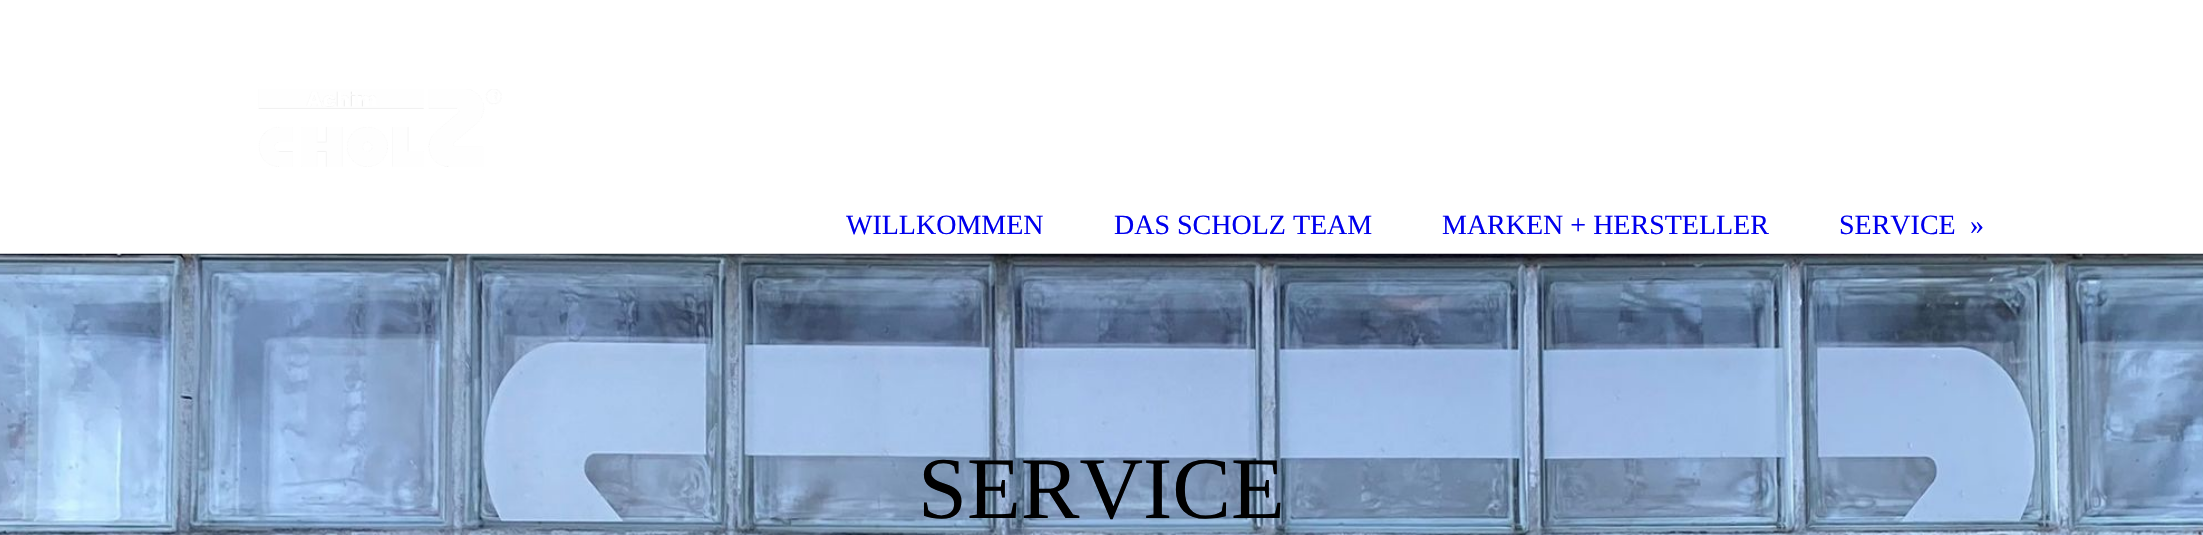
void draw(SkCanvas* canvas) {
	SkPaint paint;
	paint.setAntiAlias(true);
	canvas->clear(0xffffffff);
	canvas->drawImageRect(SkImages::DeferredFromEncodedData(SkData::MakeFromFileName("img1.png")), SkRect::MakeXYWH(258, 89, 244, 78), SkSamplingOptions());
	SkFont f1(fontMgr->matchFamilyStyle("Liberation Serif", SkFontStyle::Normal()), 28);
	f1.setSubpixel(true);
	paint.setColor(0xff0000ee);
	canvas->drawString("WILLKOMMEN", 846, 234, f1, paint);
	canvas->drawString("DAS SCHOLZ TEAM", 1114, 234, f1, paint);
	canvas->drawString("MARKEN + HERSTELLER", 1442, 234, f1, paint);
	canvas->drawString("SERVICE", 1839, 234, f1, paint);
	canvas->drawString("»", 1970, 234, f1, paint);
	canvas->drawImageRect(SkImages::DeferredFromEncodedData(SkData::MakeFromFileName("img2.png")), SkRect::MakeXYWH(0, 253, 2203, 282), SkSamplingOptions());
	SkFont f2(fontMgr->matchFamilyStyle("Liberation Serif", SkFontStyle::Normal()), 88);
	f2.setSubpixel(true);
	paint.setColor(0xff000000);
	canvas->drawString("SERVICE", 918, 518, f2, paint);
}
